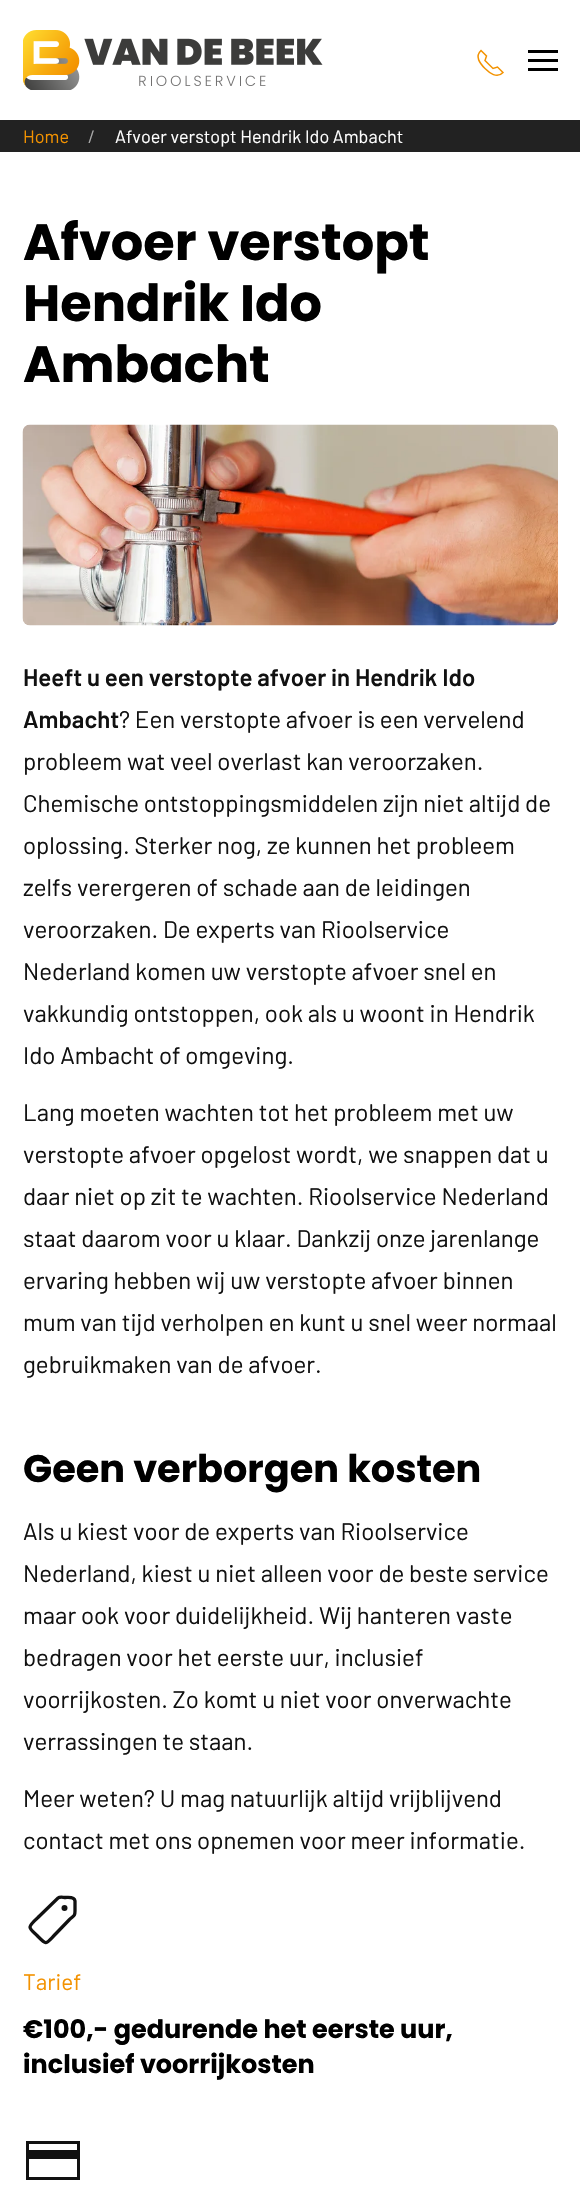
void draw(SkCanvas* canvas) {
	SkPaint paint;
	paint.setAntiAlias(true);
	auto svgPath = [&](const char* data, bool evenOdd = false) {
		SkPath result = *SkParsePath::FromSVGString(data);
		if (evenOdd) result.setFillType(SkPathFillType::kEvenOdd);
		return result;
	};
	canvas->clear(0xffffffff);
	canvas->drawImageRect(SkImages::DeferredFromEncodedData(SkData::MakeFromFileName("img1.png")), SkRect::MakeXYWH(23, 30, 300, 60), SkSamplingOptions());
	paint.setStroke(true);
	paint.setStrokeWidth(1.5);
	paint.setColor(0xfff39200);
	canvas->drawPath(svgPath("M485 68.5C489.5 73 497 79 503 72.5L497.5 67L493 68.5L485 60.5L486.5 56L481 50.5C474.5 56.5 480 63.5 485 68.5"), paint);
	paint.setStroke(false);
	paint.setColor(0xff000000);
	canvas->drawRect(SkRect::MakeXYWH(528, 50, 30, 3), paint);
	canvas->drawRect(SkRect::MakeXYWH(528, 59, 30, 3), paint);
	canvas->drawRect(SkRect::MakeXYWH(528, 68, 30, 3), paint);
	paint.setColor(0xff222222);
	canvas->drawRect(SkRect::MakeXYWH(0, 120, 580, 32), paint);
	SkFont f1(fontMgr->matchFamilyStyle("Barlow", SkFontStyle::Normal()), 18);
	f1.setSubpixel(true);
	paint.setColor(0xfff39200);
	canvas->drawString("Home", 23, 143, f1, paint);
	paint.setColor(0xffaaaaaa);
	canvas->drawString("/", 88, 143, f1, paint);
	paint.setColor(0xffffffff);
	canvas->drawString("Afvoer verstopt Hendrik Ido Ambacht", 115, 143, f1, paint);
	SkFont f2(fontMgr->matchFamilyStyle("Poppins", SkFontStyle::Bold()), 51);
	f2.setSubpixel(true);
	paint.setColor(0xff000000);
	canvas->drawString("Afvoer verstopt", 23, 260, f2, paint);
	canvas->drawString("Hendrik Ido", 23, 321, f2, paint);
	canvas->drawString("Ambacht", 23, 382, f2, paint);
	canvas->drawImageRect(SkImages::DeferredFromEncodedData(SkData::MakeFromFileName("img2.png")), SkRect::MakeXYWH(22, 424, 536, 202), SkSamplingOptions());
	SkFont f3(fontMgr->matchFamilyStyle("Barlow", SkFontStyle(600, SkFontStyle::kNormal_Width, SkFontStyle::kUpright_Slant)), 24);
	f3.setSubpixel(true);
	paint.setColor(0xff111111);
	canvas->drawString("Heeft u een verstopte afvoer in Hendrik Ido", 23, 686, f3, paint);
	canvas->drawString("Ambacht", 23, 728, f3, paint);
	SkFont f4(fontMgr->matchFamilyStyle("Barlow", SkFontStyle::Normal()), 24);
	f4.setSubpixel(true);
	canvas->drawString("? Een verstopte afvoer is een vervelend", 119, 728, f4, paint);
	canvas->drawString("probleem wat veel overlast kan veroorzaken.", 23, 770, f4, paint);
	canvas->drawString("Chemische ontstoppingsmiddelen zijn niet altijd de", 23, 812, f4, paint);
	canvas->drawString("oplossing. Sterker nog, ze kunnen het probleem", 23, 854, f4, paint);
	canvas->drawString("zelfs verergeren of schade aan de leidingen", 23, 896, f4, paint);
	canvas->drawString("veroorzaken. De experts van Rioolservice", 23, 938, f4, paint);
	canvas->drawString("Nederland komen uw verstopte afvoer snel en", 23, 980, f4, paint);
	canvas->drawString("vakkundig ontstoppen, ook als u woont in Hendrik", 23, 1022, f4, paint);
	canvas->drawString("Ido Ambacht of omgeving.", 23, 1064, f4, paint);
	canvas->drawString("Lang moeten wachten tot het probleem met uw", 23, 1121, f4, paint);
	canvas->drawString("verstopte afvoer opgelost wordt, we snappen dat u", 23, 1163, f4, paint);
	canvas->drawString("daar niet op zit te wachten. Rioolservice Nederland", 23, 1205, f4, paint);
	canvas->drawString("staat daarom voor u klaar. Dankzij onze jarenlange", 23, 1247, f4, paint);
	canvas->drawString("ervaring hebben wij uw verstopte afvoer binnen", 23, 1289, f4, paint);
	canvas->drawString("mum van tijd verholpen en kunt u snel weer normaal", 23, 1331, f4, paint);
	canvas->drawString("gebruikmaken van de afvoer.", 23, 1373, f4, paint);
	SkFont f5(fontMgr->matchFamilyStyle("Poppins", SkFontStyle::Bold()), 38.25);
	f5.setSubpixel(true);
	paint.setColor(0xff000000);
	canvas->drawString("Geen verborgen kosten", 23, 1482, f5, paint);
	paint.setColor(0xff111111);
	canvas->drawString("Als u kiest voor de experts van Rioolservice", 23, 1540, f4, paint);
	canvas->drawString("Nederland, kiest u niet alleen voor de beste service", 23, 1582, f4, paint);
	canvas->drawString("maar ook voor duidelijkheid. Wij hanteren vaste", 23, 1624, f4, paint);
	canvas->drawString("bedragen voor het eerste uur, inclusief", 23, 1666, f4, paint);
	canvas->drawString("voorrijkosten. Zo komt u niet voor onverwachte", 23, 1708, f4, paint);
	canvas->drawString("verrassingen te staan.", 23, 1750, f4, paint);
	canvas->drawString("Meer weten? U mag natuurlijk altijd vrijblijvend", 23, 1807, f4, paint);
	canvas->drawString("contact met ons opnemen voor meer informatie.", 23, 1849, f4, paint);
	paint.setStroke(true);
	paint.setStrokeWidth(3.3);
	canvas->drawPath(svgPath("M75 1901V1911C75 1916 74 1915.5 69.5 1919.5L56.5 1933C45 1944.5 47.5 1946 37 1935.5C35.5 1933.5 30 1930 30 1927C30 1924 37.5 1918 39.5 1916L58 1898C60 1896.5 63 1897.5 65.5 1897.5C68.5 1897.5 74.5 1896.5 75 1901Z"), paint);
	paint.setStroke(false);
	canvas->drawCircle(64.5, 1908, 3, paint);
	SkFont f6(fontMgr->matchFamilyStyle("Barlow", SkFontStyle::Normal()), 22.5);
	f6.setSubpixel(true);
	paint.setColor(0xfff39200);
	canvas->drawString("Tarief", 23, 1990, f6, paint);
	SkFont f7(fontMgr->matchFamilyStyle("Poppins", SkFontStyle::Bold()), 25.5);
	f7.setSubpixel(true);
	paint.setColor(0xff000000);
	canvas->drawString("€100,- gedurende het eerste uur,", 23, 2038, f7, paint);
	canvas->drawString("inclusief voorrijkosten", 23, 2073, f7, paint);
	paint.setStroke(true);
	paint.setStrokeWidth(3);
	paint.setColor(0xff111111);
	canvas->drawRect(SkRect::MakeXYWH(27.5, 2142.5, 51, 36), paint);
	paint.setStroke(false);
	canvas->drawRect(SkRect::MakeXYWH(29, 2150, 48, 9), paint);
}
